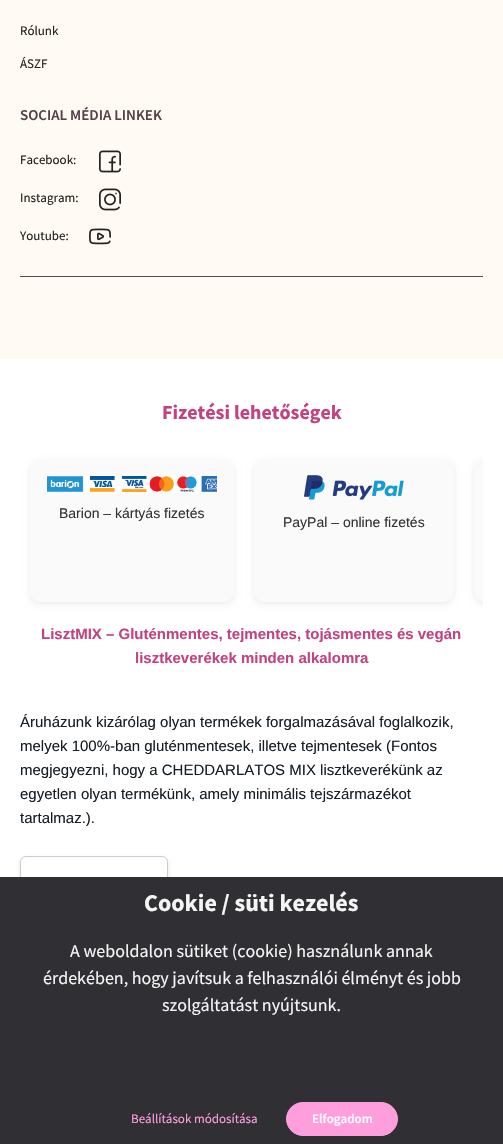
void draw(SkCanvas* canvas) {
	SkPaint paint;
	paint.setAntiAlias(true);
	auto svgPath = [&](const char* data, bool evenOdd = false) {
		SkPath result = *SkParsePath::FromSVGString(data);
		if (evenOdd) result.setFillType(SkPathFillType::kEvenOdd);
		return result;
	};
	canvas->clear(0xffffffff);
	paint.setColor(0xfffffaf3);
	canvas->drawRect(SkRect::MakeXYWH(0, 0, 503, 359), paint);
	SkFont f1(fontMgr->matchFamilyStyle("Source Sans Pro", SkFontStyle::Normal()), 13);
	f1.setSubpixel(true);
	paint.setColor(0xff222222);
	canvas->drawString("Rólunk", 20, 35, f1, paint);
	canvas->drawString("ÁSZF", 20, 68, f1, paint);
	SkFont f2(fontMgr->matchFamilyStyle("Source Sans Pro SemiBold", SkFontStyle(600, SkFontStyle::kNormal_Width, SkFontStyle::kUpright_Slant)), 15);
	f2.setSubpixel(true);
	paint.setColor(0xff54414a);
	canvas->drawString("SOCIAL MÉDIA LINKEK", 20, 120, f2, paint);
	paint.setColor(0xff222222);
	canvas->drawString("Facebook:", 20, 164, f1, paint);
	canvas->drawImageRect(SkImages::DeferredFromEncodedData(SkData::MakeFromFileName("img1.png")), SkRect::MakeXYWH(99, 150, 22, 23), SkSamplingOptions());
	canvas->drawString("Instagram:", 20, 202, f1, paint);
	canvas->drawImageRect(SkImages::DeferredFromEncodedData(SkData::MakeFromFileName("img2.png")), SkRect::MakeXYWH(99, 188, 22, 23), SkSamplingOptions());
	canvas->drawString("Youtube:", 20, 240, f1, paint);
	canvas->drawImageRect(SkImages::DeferredFromEncodedData(SkData::MakeFromFileName("img3.png")), SkRect::MakeXYWH(89, 228, 22, 17), SkSamplingOptions());
	paint.setColor(0xff495057);
	canvas->drawRect(SkRect::MakeXYWH(20, 276, 463, 1), paint);
	SkFont f3(fontMgr->matchFamilyStyle("Source Sans Pro", SkFontStyle::Bold()), 20);
	f3.setSubpixel(true);
	paint.setColor(0xffc24282);
	canvas->drawString("Fizetési lehetőségek", 162, 419, f3, paint);
	paint.setColor(0x14000000);
	paint.setMaskFilter(SkMaskFilter::MakeBlur(kNormal_SkBlurStyle, 3));
	canvas->drawRoundRect(SkRect::MakeXYWH(30, 461, 204, 143), 10, 10, paint);
	paint.setMaskFilter(nullptr);
	paint.setColor(0xfffafafa);
	canvas->drawRoundRect(SkRect::MakeXYWH(30, 459, 204, 143), 10, 10, paint);
	canvas->drawImageRect(SkImages::DeferredFromEncodedData(SkData::MakeFromFileName("img4.png")), SkRect::MakeXYWH(46, 475, 172, 18), SkSamplingOptions());
	SkFont f4(fontMgr->matchFamilyStyle("Liberation Sans", SkFontStyle::Normal()), 14);
	f4.setSubpixel(true);
	paint.setColor(0xff333333);
	canvas->drawString("Barion – kártyás fizetés", 59, 518, f4, paint);
	canvas->save();
	canvas->clipRect(SkRect::MakeXYWH(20, 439, 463, 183));
	paint.setColor(0x14000000);
	paint.setMaskFilter(SkMaskFilter::MakeBlur(kNormal_SkBlurStyle, 3));
	canvas->drawRoundRect(SkRect::MakeXYWH(474, 461, 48, 143), 10, 10, paint);
	paint.setMaskFilter(nullptr);
	canvas->restore();
	paint.setColor(0xfffafafa);
	canvas->drawPath(svgPath("M484 459H483V602H484C478.5 602 474 597.5 474 592V469C474 463.5 478.5 459 484 459Z"), paint);
	paint.setColor(0x14000000);
	paint.setMaskFilter(SkMaskFilter::MakeBlur(kNormal_SkBlurStyle, 3));
	canvas->drawRoundRect(SkRect::MakeXYWH(254, 461, 200, 143), 10, 10, paint);
	paint.setMaskFilter(nullptr);
	paint.setColor(0xfffafafa);
	canvas->drawRoundRect(SkRect::MakeXYWH(254, 459, 200, 143), 10, 10, paint);
	canvas->drawImageRect(SkImages::DeferredFromEncodedData(SkData::MakeFromFileName("img5.png")), SkRect::MakeXYWH(304, 475, 100, 25), SkSamplingOptions());
	paint.setColor(0xff333333);
	canvas->drawString("PayPal – online fizetés", 283, 527, f4, paint);
	SkFont f5(fontMgr->matchFamilyStyle("Liberation Sans", SkFontStyle::Bold()), 15);
	f5.setSubpixel(true);
	paint.setColor(0xffc24282);
	canvas->drawString("LisztMIX – Gluténmentes, tejmentes, tojásmentes és vegán", 41, 639, f5, paint);
	canvas->drawString("lisztkeverékek minden alkalomra", 135, 663, f5, paint);
	SkFont f6(fontMgr->matchFamilyStyle("Liberation Sans", SkFontStyle::Normal()), 15);
	f6.setSubpixel(true);
	paint.setColor(0xff151e26);
	canvas->drawString("Áruházunk kizárólag olyan termékek forgalmazásával foglalkozik,", 20, 727, f6, paint);
	canvas->drawString("melyek 100%-ban gluténmentesek, illetve tejmentesek (Fontos", 20, 751, f6, paint);
	canvas->drawString("megjegyezni, hogy a CHEDDARLATOS MIX lisztkeverékünk az", 20, 775, f6, paint);
	canvas->drawString("egyetlen olyan termékünk, amely minimális tejszármazékot", 20, 799, f6, paint);
	canvas->drawString("tartalmaz.).", 20, 823, f6, paint);
	paint.setColor(0x1a000000);
	paint.setMaskFilter(SkMaskFilter::MakeBlur(kNormal_SkBlurStyle, 2));
	canvas->drawRoundRect(SkRect::MakeXYWH(20, 858, 148, 40), 6, 6, paint);
	paint.setMaskFilter(nullptr);
	paint.setColor(0xffffffff);
	canvas->drawRoundRect(SkRect::MakeXYWH(20.5, 856.5, 147, 39), 5.5, 5.5, paint);
	paint.setStroke(true);
	paint.setStrokeWidth(1);
	paint.setColor(0xffcccccc);
	canvas->drawRoundRect(SkRect::MakeXYWH(20.5, 856.5, 147, 39), 5.5, 5.5, paint);
	paint.setStroke(false);
	paint.setColor(0xff302f34);
	canvas->drawRect(SkRect::MakeXYWH(0, 877, 503, 267), paint);
	SkFont f7(fontMgr->matchFamilyStyle("Source Sans Pro", SkFontStyle::Bold()), 24);
	f7.setSubpixel(true);
	paint.setColor(0xfff5f5f5);
	canvas->drawString("Cookie / süti kezelés", 144, 911, f7, paint);
	SkFont f8(fontMgr->matchFamilyStyle("Source Sans Pro", SkFontStyle::Normal()), 18);
	f8.setSubpixel(true);
	canvas->drawString("A weboldalon sütiket (cookie) használunk annak", 70, 957, f8, paint);
	canvas->drawString("érdekében, hogy javítsuk a felhasználói élményt és jobb", 43, 984, f8, paint);
	canvas->drawString("szolgáltatást nyújtsunk.", 162, 1011, f8, paint);
	paint.setColor(0xffff9edd);
	canvas->drawString("Beállítások módosítása", 131, 1123, f1, paint);
	canvas->drawRoundRect(SkRect::MakeXYWH(286.5, 1102.5, 111, 33), 16.5, 16.5, paint);
	paint.setStroke(true);
	canvas->drawRoundRect(SkRect::MakeXYWH(286.5, 1102.5, 111, 33), 16.5, 16.5, paint);
	SkFont f9(fontMgr->matchFamilyStyle("Source Sans Pro SemiBold", SkFontStyle(600, SkFontStyle::kNormal_Width, SkFontStyle::kUpright_Slant)), 13);
	f9.setSubpixel(true);
	paint.setStroke(false);
	paint.setColor(0xffffffff);
	canvas->drawString("Elfogadom", 312, 1123, f9, paint);
}
